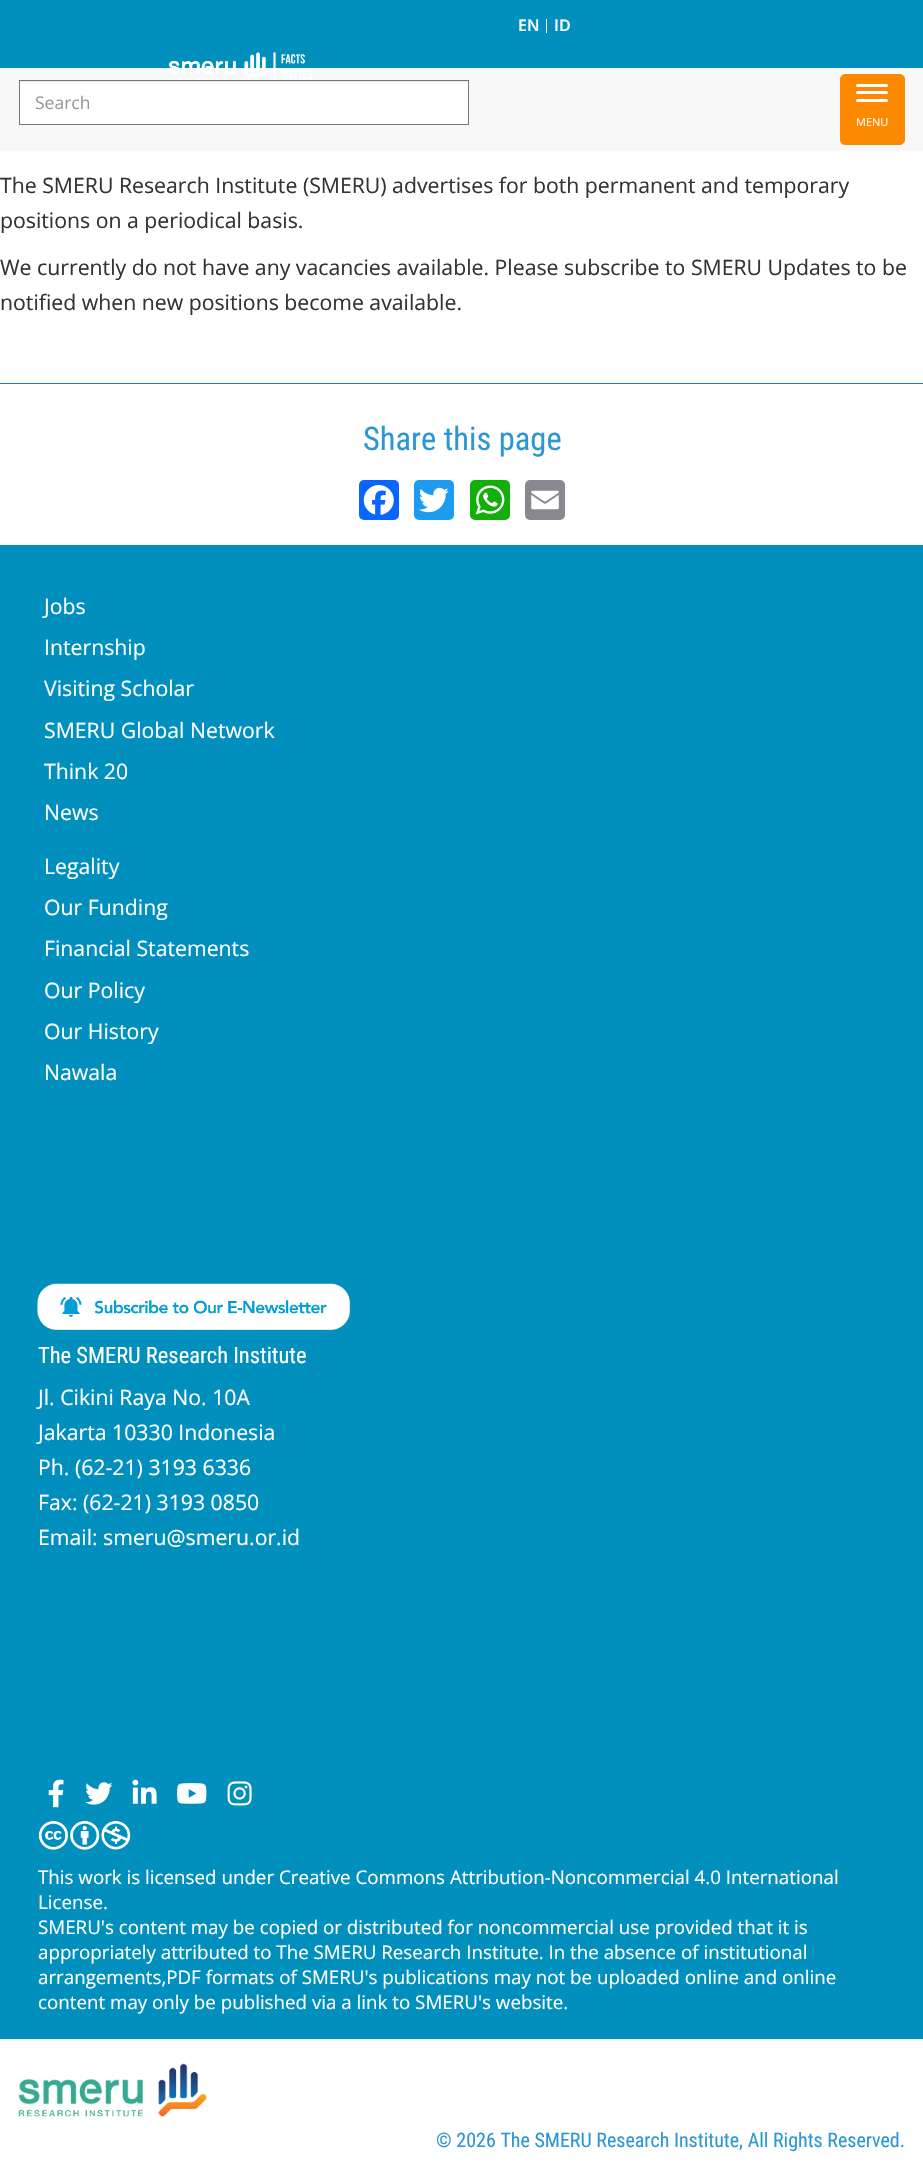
void draw(SkCanvas* canvas) {
	SkPaint paint;
	paint.setAntiAlias(true);
	canvas->clear(0xffffffff);
	paint.setColor(0xfff8f8f8);
	canvas->drawRect(SkRect::MakeXYWH(0, 68, 923, 83), paint);
	paint.setColor(0xff018fbd);
	canvas->drawRect(SkRect::MakeXYWH(0, 0, 923, 68), paint);
	paint.setColor(0xffffffff);
	canvas->drawRect(SkRect::MakeXYWH(546, 19, 1, 14), paint);
	SkFont f1(fontMgr->matchFamilyStyle("Open Sans", SkFontStyle(600, SkFontStyle::kNormal_Width, SkFontStyle::kUpright_Slant)), 16);
	f1.setSubpixel(true);
	canvas->drawString("EN", 518, 31, f1, paint);
	canvas->drawString("ID", 554, 31, f1, paint);
	canvas->drawImageRect(SkImages::DeferredFromEncodedData(SkData::MakeFromFileName("img1.png")), SkRect::MakeXYWH(169, 52, 143, 28), SkSamplingOptions());
	canvas->drawRect(SkRect::MakeXYWH(20, 82, 448, 42), paint);
	paint.setColor(0xffececec);
	canvas->drawRect(SkRect::MakeXYWH(20, 81, 448, 1), paint);
	paint.setStroke(true);
	paint.setStrokeWidth(1);
	paint.setColor(0xff777777);
	canvas->drawRect(SkRect::MakeXYWH(19.5, 80.5, 449, 44), paint);
	SkFont f2(fontMgr->matchFamilyStyle("Open Sans", SkFontStyle::Normal()), 17.5);
	f2.setSubpixel(true);
	paint.setStroke(false);
	paint.setColor(0xff999999);
	canvas->drawString("Search", 35, 109, f2, paint);
	paint.setColor(0xfffd8900);
	canvas->drawRoundRect(SkRect::MakeXYWH(840.5, 74.5, 64, 70), 4.5, 4.5, paint);
	paint.setStroke(true);
	canvas->drawRoundRect(SkRect::MakeXYWH(840.5, 74.5, 64, 70), 4.5, 4.5, paint);
	paint.setStroke(false);
	paint.setColor(0xffffffff);
	canvas->drawRoundRect(SkRect::MakeXYWH(856, 84, 32, 3), 1.5, 1.5, paint);
	canvas->drawRoundRect(SkRect::MakeXYWH(856, 91, 32, 3), 1.5, 1.5, paint);
	canvas->drawRoundRect(SkRect::MakeXYWH(856, 99, 32, 3), 1.5, 1.5, paint);
	SkFont f3(fontMgr->matchFamilyStyle("Open Sans", SkFontStyle::Normal()), 11);
	f3.setSubpixel(true);
	canvas->drawString("MENU", 856, 126, f3, paint);
	SkFont f4(fontMgr->matchFamilyStyle("Open Sans", SkFontStyle::Normal()), 21.25);
	f4.setSubpixel(true);
	paint.setColor(0xff333333);
	canvas->drawString("The SMERU Research Institute (SMERU) advertises for both permanent and temporary", 0, 193, f4, paint);
	canvas->drawString("positions on a periodical basis.", 0, 228, f4, paint);
	canvas->drawString("We currently do not have any vacancies available. Please subscribe to SMERU Updates to be", 0, 275, f4, paint);
	canvas->drawString("notified when new positions become available.", 0, 310, f4, paint);
	paint.setColor(0xff018fbd);
	canvas->drawRect(SkRect::MakeXYWH(0, 383, 923, 1), paint);
	SkFont f5(fontMgr->matchFamilyStyle("Roboto Condensed", SkFontStyle::Normal()), 32.5);
	f5.setSubpixel(true);
	paint.setColor(0xff2d97d3);
	canvas->drawString("Share this page", 363, 450, f5, paint);
	paint.setColor(0xff0866ff);
	canvas->drawRoundRect(SkRect::MakeXYWH(359, 480, 40, 40), 5, 5, paint);
	canvas->drawImageRect(SkImages::DeferredFromEncodedData(SkData::MakeFromFileName("img2.png")), SkRect::MakeXYWH(363, 485, 31, 30), SkSamplingOptions());
	paint.setColor(0xff1d9bf0);
	canvas->drawRoundRect(SkRect::MakeXYWH(414, 480, 40, 40), 5, 5, paint);
	canvas->drawImageRect(SkImages::DeferredFromEncodedData(SkData::MakeFromFileName("img3.png")), SkRect::MakeXYWH(419, 487, 30, 26), SkSamplingOptions());
	paint.setColor(0xff12af0a);
	canvas->drawRoundRect(SkRect::MakeXYWH(470, 480, 40, 40), 5, 5, paint);
	canvas->drawImageRect(SkImages::DeferredFromEncodedData(SkData::MakeFromFileName("img4.png")), SkRect::MakeXYWH(475, 485, 30, 30), SkSamplingOptions());
	paint.setColor(0xff888990);
	canvas->drawRoundRect(SkRect::MakeXYWH(525, 480, 40, 40), 5, 5, paint);
	canvas->drawImageRect(SkImages::DeferredFromEncodedData(SkData::MakeFromFileName("img5.png")), SkRect::MakeXYWH(531, 490, 28, 20), SkSamplingOptions());
	paint.setColor(0xff018fbd);
	canvas->drawRect(SkRect::MakeXYWH(0, 545, 923, 1494), paint);
	paint.setColor(0xffffffff);
	canvas->drawString("Jobs", 44, 614, f4, paint);
	canvas->drawString("Internship", 44, 655, f4, paint);
	canvas->drawString("Visiting Scholar", 44, 696, f4, paint);
	canvas->drawString("SMERU Global Network", 44, 738, f4, paint);
	canvas->drawString("Think 20", 44, 779, f4, paint);
	canvas->drawString("News", 44, 820, f4, paint);
	canvas->drawString("Legality", 44, 874, f4, paint);
	canvas->drawString("Our Funding", 44, 915, f4, paint);
	canvas->drawString("Financial Statements", 44, 956, f4, paint);
	canvas->drawString("Our Policy", 44, 998, f4, paint);
	canvas->drawString("Our History", 44, 1039, f4, paint);
	canvas->drawString("Nawala", 44, 1080, f4, paint);
	canvas->drawImageRect(SkImages::DeferredFromEncodedData(SkData::MakeFromFileName("img6.png")), SkRect::MakeXYWH(37, 1283, 313, 47), SkSamplingOptions());
	SkFont f6(fontMgr->matchFamilyStyle("Roboto Condensed", SkFontStyle::Normal()), 22.5);
	f6.setSubpixel(true);
	canvas->drawString("The SMERU Research Institute", 38, 1363, f6, paint);
	canvas->drawString("Jl. Cikini Raya No. 10A", 38, 1405, f4, paint);
	canvas->drawString("Jakarta 10330 Indonesia", 38, 1440, f4, paint);
	canvas->drawString("Ph. (62-21) 3193 6336", 38, 1475, f4, paint);
	canvas->drawString("Fax: (62-21) 3193 0850", 38, 1510, f4, paint);
	canvas->drawString("Email: smeru@smeru.or.id", 38, 1545, f4, paint);
	canvas->drawImageRect(SkImages::DeferredFromEncodedData(SkData::MakeFromFileName("img7.png")), SkRect::MakeXYWH(48, 1779, 16, 29), SkSamplingOptions());
	canvas->drawImageRect(SkImages::DeferredFromEncodedData(SkData::MakeFromFileName("img8.png")), SkRect::MakeXYWH(85, 1782, 28, 23), SkSamplingOptions());
	canvas->drawImageRect(SkImages::DeferredFromEncodedData(SkData::MakeFromFileName("img9.png")), SkRect::MakeXYWH(132, 1779, 25, 25), SkSamplingOptions());
	canvas->drawImageRect(SkImages::DeferredFromEncodedData(SkData::MakeFromFileName("img10.png")), SkRect::MakeXYWH(177, 1783, 30, 21), SkSamplingOptions());
	canvas->drawImageRect(SkImages::DeferredFromEncodedData(SkData::MakeFromFileName("img11.png")), SkRect::MakeXYWH(227, 1781, 25, 25), SkSamplingOptions());
	canvas->drawImageRect(SkImages::DeferredFromEncodedData(SkData::MakeFromFileName("img12.png")), SkRect::MakeXYWH(38, 1821, 93, 29), SkSamplingOptions());
	SkFont f7(fontMgr->matchFamilyStyle("Open Sans", SkFontStyle::Normal()), 18.75);
	f7.setSubpixel(true);
	canvas->drawString("This work is licensed under Creative Commons Attribution-Noncommercial 4.0 International", 38, 1884, f7, paint);
	canvas->drawString("License.", 38, 1909, f7, paint);
	canvas->drawString("SMERU's content may be copied or distributed for noncommercial use provided that it is", 38, 1934, f7, paint);
	canvas->drawString("appropriately attributed to The SMERU Research Institute. In the absence of institutional", 38, 1959, f7, paint);
	canvas->drawString("arrangements,PDF formats of SMERU's publications may not be uploaded online and online", 38, 1984, f7, paint);
	canvas->drawString("content may only be published via a link to SMERU's website.", 38, 2009, f7, paint);
	canvas->drawImageRect(SkImages::DeferredFromEncodedData(SkData::MakeFromFileName("img13.png")), SkRect::MakeXYWH(18, 2063, 189, 54), SkSamplingOptions());
	SkFont f8(fontMgr->matchFamilyStyle("Roboto Condensed", SkFontStyle::Normal()), 20);
	f8.setSubpixel(true);
	paint.setColor(0xff2d97d3);
	canvas->drawString("© 2026 The SMERU Research Institute, All Rights Reserved.", 436, 2147, f8, paint);
}
